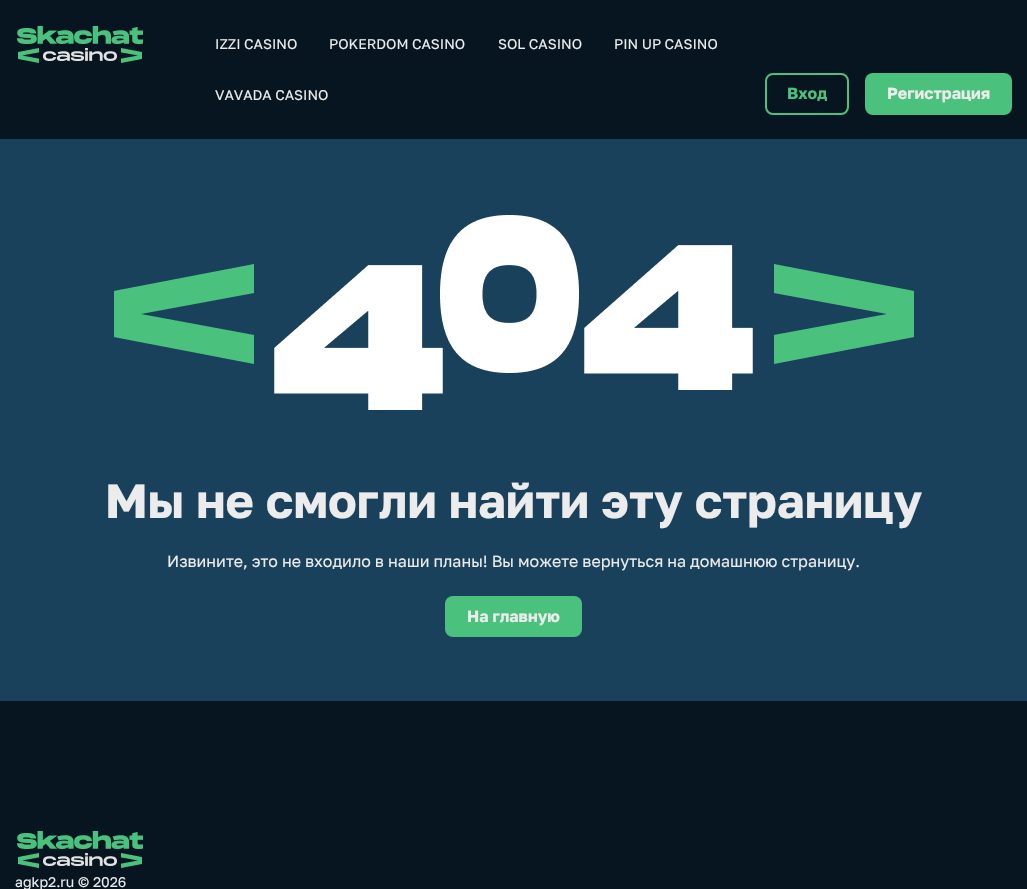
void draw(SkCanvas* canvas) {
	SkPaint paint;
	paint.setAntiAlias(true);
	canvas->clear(0xff19415c);
	paint.setColor(0xff061520);
	canvas->drawRect(SkRect::MakeXYWH(0, 0, 1027, 139), paint);
	canvas->drawImageRect(SkImages::DeferredFromEncodedData(SkData::MakeFromFileName("img1.png")), SkRect::MakeXYWH(17, 26, 126, 37), SkSamplingOptions());
	SkFont f1(fontMgr->matchFamilyStyle("Golos Text", SkFontStyle::Normal()), 14);
	f1.setSubpixel(true);
	paint.setColor(0xffececec);
	canvas->drawString("IZZI CASINO", 215, 49, f1, paint);
	canvas->drawString("POKERDOM CASINO", 329, 49, f1, paint);
	canvas->drawString("SOL CASINO", 498, 49, f1, paint);
	canvas->drawString("PIN UP CASINO", 614, 49, f1, paint);
	canvas->drawString("VAVADA CASINO", 215, 100, f1, paint);
	paint.setStroke(true);
	paint.setStrokeWidth(2);
	paint.setColor(0xff4ac17c);
	canvas->drawRoundRect(SkRect::MakeXYWH(766, 74, 82, 40), 7, 7, paint);
	SkFont f2(fontMgr->matchFamilyStyle("Golos Text", SkFontStyle::Bold()), 16);
	f2.setSubpixel(true);
	paint.setStroke(false);
	canvas->drawString("Вход", 787, 99, f2, paint);
	canvas->drawRoundRect(SkRect::MakeXYWH(865, 73, 147, 42), 8, 8, paint);
	paint.setColor(0xffececec);
	canvas->drawString("Регистрация", 887, 99, f2, paint);
	canvas->drawImageRect(SkImages::DeferredFromEncodedData(SkData::MakeFromFileName("img2.png")), SkRect::MakeXYWH(114, 215, 800, 195), SkSamplingOptions());
	SkFont f3(fontMgr->matchFamilyStyle("Golos Text", SkFontStyle::Bold()), 48);
	f3.setSubpixel(true);
	canvas->drawString("Мы не смогли найти эту страницу", 105, 518, f3, paint);
	SkFont f4(fontMgr->matchFamilyStyle("Golos Text", SkFontStyle::Normal()), 16);
	f4.setSubpixel(true);
	canvas->drawString("Извините, это не входило в наши планы! Вы можете вернуться на домашнюю страницу.", 167, 567, f4, paint);
	paint.setColor(0xff4ac17c);
	canvas->drawRoundRect(SkRect::MakeXYWH(445, 596, 137, 41), 8, 8, paint);
	paint.setColor(0xffececec);
	canvas->drawString("На главную", 467, 622, f2, paint);
	paint.setColor(0xff061520);
	canvas->drawRect(SkRect::MakeXYWH(0, 701, 1027, 188), paint);
	canvas->drawImageRect(SkImages::DeferredFromEncodedData(SkData::MakeFromFileName("img1.png")), SkRect::MakeXYWH(17, 831, 126, 37), SkSamplingOptions());
	paint.setColor(0xffececec);
	canvas->drawString("agkp2.ru © 2026", 15, 887, f1, paint);
}
